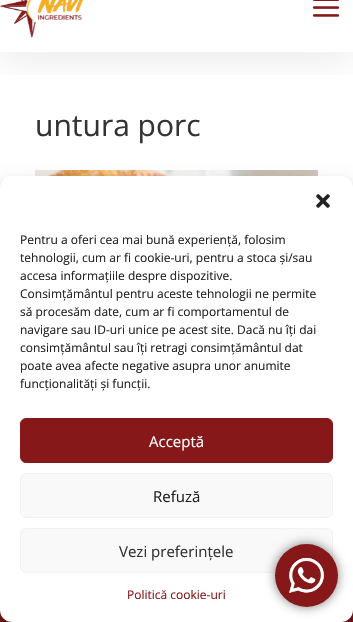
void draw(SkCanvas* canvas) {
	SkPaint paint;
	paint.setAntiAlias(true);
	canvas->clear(0xffffffff);
	canvas->save();
	canvas->clipRect(SkRect::MakeXYWH(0, 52, 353, 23));
	paint.setColor(0x1a000000);
	paint.setMaskFilter(SkMaskFilter::MakeBlur(kNormal_SkBlurStyle, 25));
	canvas->drawRect(SkRect::MakeXYWH(0, -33, 353, 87), paint);
	paint.setMaskFilter(nullptr);
	canvas->restore();
	canvas->drawImageRect(SkImages::DeferredFromEncodedData(SkData::MakeFromFileName("img1.png")), SkRect::MakeXYWH(0, 0, 84, 38), SkSamplingOptions());
	canvas->drawImageRect(SkImages::DeferredFromEncodedData(SkData::MakeFromFileName("img2.png")), SkRect::MakeXYWH(312, 0, 28, 17), SkSamplingOptions());
	SkFont f1(fontMgr->matchFamilyStyle("Open Sans", SkFontStyle::Normal()), 30);
	f1.setSubpixel(true);
	paint.setColor(0xff333333);
	canvas->drawString("untura porc", 35, 136, f1, paint);
	canvas->drawImageRect(SkImages::DeferredFromEncodedData(SkData::MakeFromFileName("img3.png")), SkRect::MakeXYWH(35, 170, 283, 6), SkSamplingOptions());
	paint.setColor(0xff861819);
	canvas->drawRect(SkRect::MakeXYWH(0, 610, 353, 12), paint);
	paint.setColor(0x3b000000);
	paint.setMaskFilter(SkMaskFilter::MakeBlur(kNormal_SkBlurStyle, 3));
	canvas->drawRoundRect(SkRect::MakeXYWH(0, 182, 353, 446), 12, 12, paint);
	paint.setMaskFilter(nullptr);
	paint.setColor(0x30000000);
	paint.setMaskFilter(SkMaskFilter::MakeBlur(kNormal_SkBlurStyle, 10));
	canvas->drawRoundRect(SkRect::MakeXYWH(0, 186, 353, 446), 12, 12, paint);
	paint.setMaskFilter(nullptr);
	paint.setColor(0xffffffff);
	canvas->drawRoundRect(SkRect::MakeXYWH(0, 176, 353, 446), 12, 12, paint);
	canvas->drawImageRect(SkImages::DeferredFromEncodedData(SkData::MakeFromFileName("img4.png")), SkRect::MakeXYWH(316, 194, 14, 14), SkSamplingOptions());
	SkFont f2(fontMgr->matchFamilyStyle("Open Sans", SkFontStyle::Normal()), 12);
	f2.setSubpixel(true);
	paint.setColor(0xff222222);
	canvas->drawString("Pentru a oferi cea mai bună experiență, folosim", 20, 244, f2, paint);
	canvas->drawString("tehnologii, cum ar fi cookie-uri, pentru a stoca și/sau", 20, 262, f2, paint);
	canvas->drawString("accesa informațiile despre dispozitive.", 20, 280, f2, paint);
	canvas->drawString("Consimțământul pentru aceste tehnologii ne permite", 20, 298, f2, paint);
	canvas->drawString("să procesăm date, cum ar fi comportamentul de", 20, 316, f2, paint);
	canvas->drawString("navigare sau ID-uri unice pe acest site. Dacă nu îți dai", 20, 334, f2, paint);
	canvas->drawString("consimțământul sau îți retragi consimțământul dat", 20, 352, f2, paint);
	canvas->drawString("poate avea afecte negative asupra unor anumite", 20, 370, f2, paint);
	canvas->drawString("funcționalități și funcții.", 20, 388, f2, paint);
	paint.setColor(0xff861819);
	canvas->drawRoundRect(SkRect::MakeXYWH(20.5, 418.5, 312, 44), 5.5, 5.5, paint);
	paint.setStroke(true);
	paint.setStrokeWidth(1);
	canvas->drawRoundRect(SkRect::MakeXYWH(20.5, 418.5, 312, 44), 5.5, 5.5, paint);
	SkFont f3(fontMgr->matchFamilyStyle("Open Sans", SkFontStyle::Normal()), 15);
	f3.setSubpixel(true);
	paint.setStroke(false);
	paint.setColor(0xffffffff);
	canvas->drawString("Acceptă", 149, 447, f3, paint);
	paint.setColor(0xfff9f9f9);
	canvas->drawRoundRect(SkRect::MakeXYWH(20.5, 473.5, 312, 44), 5.5, 5.5, paint);
	paint.setStroke(true);
	paint.setColor(0xfff2f2f2);
	canvas->drawRoundRect(SkRect::MakeXYWH(20.5, 473.5, 312, 44), 5.5, 5.5, paint);
	paint.setStroke(false);
	paint.setColor(0xff222222);
	canvas->drawString("Refuză", 153, 502, f3, paint);
	paint.setColor(0xfff9f9f9);
	canvas->drawRoundRect(SkRect::MakeXYWH(20.5, 528.5, 312, 44), 5.5, 5.5, paint);
	paint.setStroke(true);
	paint.setColor(0xfff2f2f2);
	canvas->drawRoundRect(SkRect::MakeXYWH(20.5, 528.5, 312, 44), 5.5, 5.5, paint);
	paint.setStroke(false);
	paint.setColor(0xff333333);
	canvas->drawString("Vezi preferințele", 119, 557, f3, paint);
	paint.setColor(0xff861819);
	canvas->drawString("Politică cookie-uri", 127, 599, f2, paint);
	paint.setColor(0x80000000);
	paint.setMaskFilter(SkMaskFilter::MakeBlur(kNormal_SkBlurStyle, 5.5));
	canvas->drawRoundRect(SkRect::MakeXYWH(275, 544, 63, 63), 31.5, 31.5, paint);
	paint.setMaskFilter(nullptr);
	paint.setColor(0xff861819);
	canvas->drawCircle(306.5, 575.5, 31.5, paint);
	canvas->drawImageRect(SkImages::DeferredFromEncodedData(SkData::MakeFromFileName("img5.png")), SkRect::MakeXYWH(289, 558, 35, 35), SkSamplingOptions());
}
